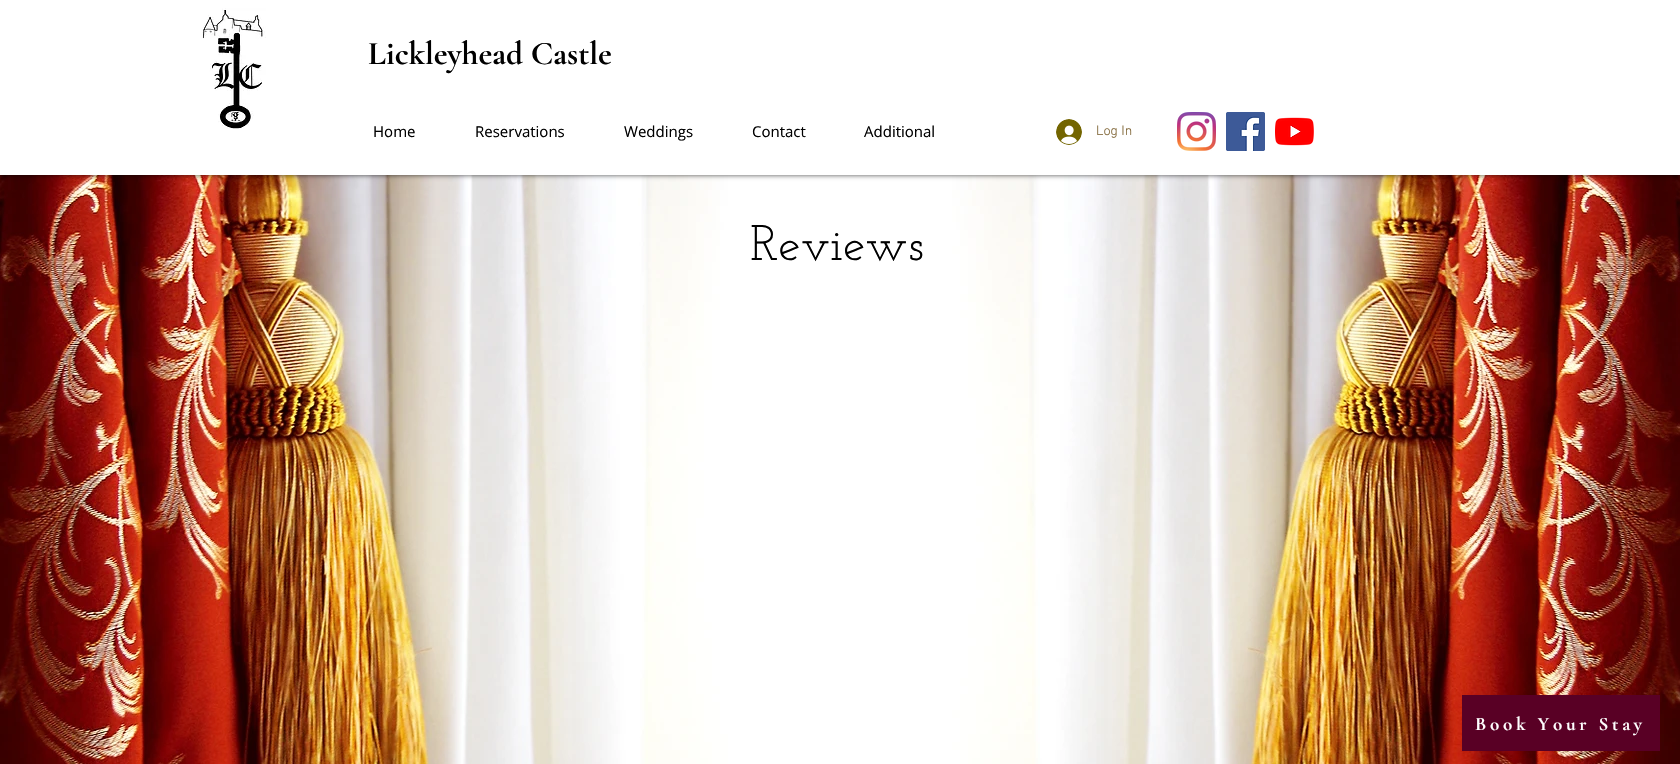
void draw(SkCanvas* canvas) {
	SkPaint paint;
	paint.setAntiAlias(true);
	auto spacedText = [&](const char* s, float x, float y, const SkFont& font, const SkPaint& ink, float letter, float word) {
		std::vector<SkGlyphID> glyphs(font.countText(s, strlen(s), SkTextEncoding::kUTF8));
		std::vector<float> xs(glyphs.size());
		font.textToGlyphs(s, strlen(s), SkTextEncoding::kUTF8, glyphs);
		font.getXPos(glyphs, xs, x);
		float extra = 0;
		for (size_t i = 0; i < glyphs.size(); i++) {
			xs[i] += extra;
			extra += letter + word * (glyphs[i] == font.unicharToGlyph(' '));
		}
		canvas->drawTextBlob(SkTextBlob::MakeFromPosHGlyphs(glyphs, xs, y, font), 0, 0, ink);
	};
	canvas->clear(0xffffffff);
	canvas->drawImageRect(SkImages::DeferredFromEncodedData(SkData::MakeFromFileName("img6.png")), SkRect::MakeXYWH(0, 175, 1680, 589), SkSamplingOptions());
	paint.setColor(0xb3000000);
	paint.setMaskFilter(SkMaskFilter::MakeBlur(kNormal_SkBlurStyle, 2.5));
	canvas->drawRect(SkRect::MakeXYWH(0, 0, 1680, 175), paint);
	paint.setMaskFilter(nullptr);
	paint.setColor(0xffffffff);
	canvas->drawRect(SkRect::MakeXYWH(0, 0, 1680, 175), paint);
	canvas->drawImageRect(SkImages::DeferredFromEncodedData(SkData::MakeFromFileName("img1.png")), SkRect::MakeXYWH(202, 8, 64, 121), SkSamplingOptions());
	SkFont f1(fontMgr->matchFamilyStyle("Cormorant Garamond", SkFontStyle::Bold()), 33);
	f1.setSubpixel(true);
	paint.setColor(0xff000000);
	canvas->drawString("Lickleyhead Castle", 368, 64, f1, paint);
	SkFont f2(fontMgr->matchFamilyStyle("Open Sans", SkFontStyle::Normal()), 15);
	f2.setSubpixel(true);
	canvas->drawString("Home", 373, 137, f2, paint);
	canvas->drawString("Reservations", 475, 137, f2, paint);
	canvas->drawString("Weddings", 624, 137, f2, paint);
	canvas->drawString("Contact", 752, 137, f2, paint);
	canvas->drawString("Additional", 864, 137, f2, paint);
	canvas->drawImageRect(SkImages::DeferredFromEncodedData(SkData::MakeFromFileName("img2.png")), SkRect::MakeXYWH(1056, 119, 26, 26), SkSamplingOptions());
	SkFont f3(fontMgr->matchFamilyStyle("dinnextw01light", SkFontStyle(300, SkFontStyle::kNormal_Width, SkFontStyle::kUpright_Slant)), 14);
	f3.setSubpixel(true);
	paint.setColor(0xff806637);
	canvas->drawString("Log In", 1096, 135, f3, paint);
	canvas->drawImageRect(SkImages::DeferredFromEncodedData(SkData::MakeFromFileName("img3.png")), SkRect::MakeXYWH(1177, 112, 39, 39), SkSamplingOptions());
	canvas->drawImageRect(SkImages::DeferredFromEncodedData(SkData::MakeFromFileName("img4.png")), SkRect::MakeXYWH(1226, 112, 39, 39), SkSamplingOptions());
	canvas->drawImageRect(SkImages::DeferredFromEncodedData(SkData::MakeFromFileName("img5.png")), SkRect::MakeXYWH(1275, 117, 39, 29), SkSamplingOptions());
	SkFont f4(fontMgr->matchFamilyStyle("Josefin Slab", SkFontStyle::Normal()), 50);
	f4.setSubpixel(true);
	paint.setColor(0xff000000);
	canvas->drawString("Reviews", 750, 260, f4, paint);
	paint.setColor(0xff590025);
	canvas->drawRect(SkRect::MakeXYWH(1462, 695, 198, 56), paint);
	SkFont f5(fontMgr->matchFamilyStyle("Cormorant Garamond", SkFontStyle::Bold()), 19);
	f5.setSubpixel(true);
	paint.setColor(0xffffffff);
	spacedText("Book Your Stay", 1475, 730, f5, paint, 3.75, 0);
}
